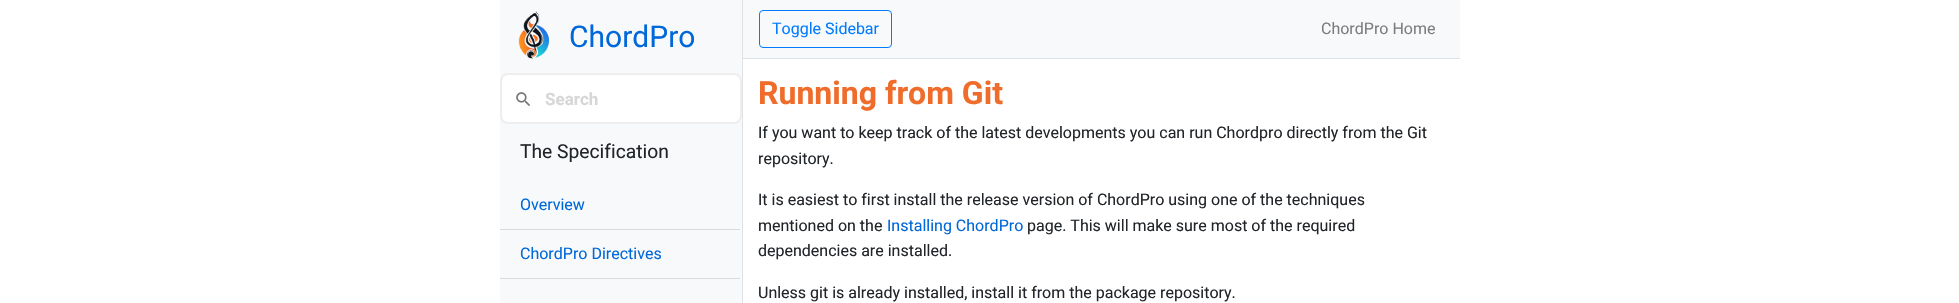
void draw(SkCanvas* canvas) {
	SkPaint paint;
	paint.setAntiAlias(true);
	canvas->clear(0xffffffff);
	paint.setColor(0xfff8f9fa);
	canvas->drawRect(SkRect::MakeXYWH(500, 0, 242, 303), paint);
	paint.setColor(0xffdee2e6);
	canvas->drawRect(SkRect::MakeXYWH(742, 0, 1, 303), paint);
	canvas->drawImageRect(SkImages::DeferredFromEncodedData(SkData::MakeFromFileName("img1.png")), SkRect::MakeXYWH(518, 11, 31, 48), SkSamplingOptions());
	SkFont f1(fontMgr->matchFamilyStyle("Roboto", SkFontStyle::Normal()), 30);
	f1.setSubpixel(true);
	paint.setColor(0xff0068d9);
	canvas->drawString("ChordPro", 569, 47, f1, paint);
	paint.setColor(0xffffffff);
	canvas->drawRoundRect(SkRect::MakeXYWH(501, 74, 240, 49), 7, 7, paint);
	paint.setStroke(true);
	paint.setStrokeWidth(2);
	paint.setColor(0xffeeeeee);
	canvas->drawRoundRect(SkRect::MakeXYWH(501, 74, 240, 49), 7, 7, paint);
	canvas->drawImageRect(SkImages::DeferredFromEncodedData(SkData::MakeFromFileName("img2.png")), SkRect::MakeXYWH(516, 92, 14, 14), SkSamplingOptions());
	SkFont f2(fontMgr->matchFamilyStyle("Roboto", SkFontStyle::Bold()), 17);
	f2.setSubpixel(true);
	paint.setStroke(false);
	paint.setColor(0xffd7d7d7);
	canvas->drawString("Search", 545, 105, f2, paint);
	SkFont f3(fontMgr->matchFamilyStyle("Roboto", SkFontStyle::Normal()), 19.25);
	f3.setSubpixel(true);
	paint.setColor(0xff212529);
	canvas->drawString("The Specification", 520, 158, f3, paint);
	paint.setColor(0xffd9dadb);
	canvas->drawRect(SkRect::MakeXYWH(500, 229, 240, 1), paint);
	SkFont f4(fontMgr->matchFamilyStyle("Roboto", SkFontStyle::Normal()), 16);
	f4.setSubpixel(true);
	paint.setColor(0xff0068d9);
	canvas->drawString("Overview", 520, 210, f4, paint);
	paint.setColor(0xffd9dadb);
	canvas->drawRect(SkRect::MakeXYWH(500, 278, 240, 1), paint);
	paint.setColor(0xff0068d9);
	canvas->drawString("ChordPro Directives", 520, 259, f4, paint);
	paint.setColor(0xfff8f9fa);
	canvas->drawRect(SkRect::MakeXYWH(743, 0, 717, 58), paint);
	paint.setColor(0xffdee2e6);
	canvas->drawRect(SkRect::MakeXYWH(743, 58, 717, 1), paint);
	paint.setStroke(true);
	paint.setStrokeWidth(1);
	paint.setColor(0xff007bff);
	canvas->drawRoundRect(SkRect::MakeXYWH(759.5, 10.5, 132, 37), 3.5, 3.5, paint);
	paint.setStroke(false);
	canvas->drawString("Toggle Sidebar", 772, 34, f4, paint);
	paint.setColor(0xff7c7d7d);
	canvas->drawString("ChordPro Home", 1321, 34, f4, paint);
	SkFont f5(fontMgr->matchFamilyStyle("Roboto", SkFontStyle::Bold()), 32);
	f5.setSubpixel(true);
	paint.setColor(0xffef6c2a);
	canvas->drawString("Running from Git", 758, 104, f5, paint);
	paint.setColor(0xff212529);
	canvas->drawString("If you want to keep track of the latest developments you can run Chordpro directly from the Git", 758, 138, f4, paint);
	canvas->drawString("repository.", 758, 164, f4, paint);
	canvas->drawString("It is easiest to first install the release version of ChordPro using one of the techniques", 758, 205, f4, paint);
	canvas->drawString("mentioned on the", 758, 231, f4, paint);
	paint.setColor(0xff0068d9);
	canvas->drawString("Installing ChordPro", 887, 231, f4, paint);
	paint.setColor(0xff212529);
	canvas->drawString("page. This will make sure most of the required", 1027, 231, f4, paint);
	canvas->drawString("dependencies are installed.", 758, 256, f4, paint);
	canvas->drawString("Unless git is already installed, install it from the package repository.", 758, 298, f4, paint);
}
